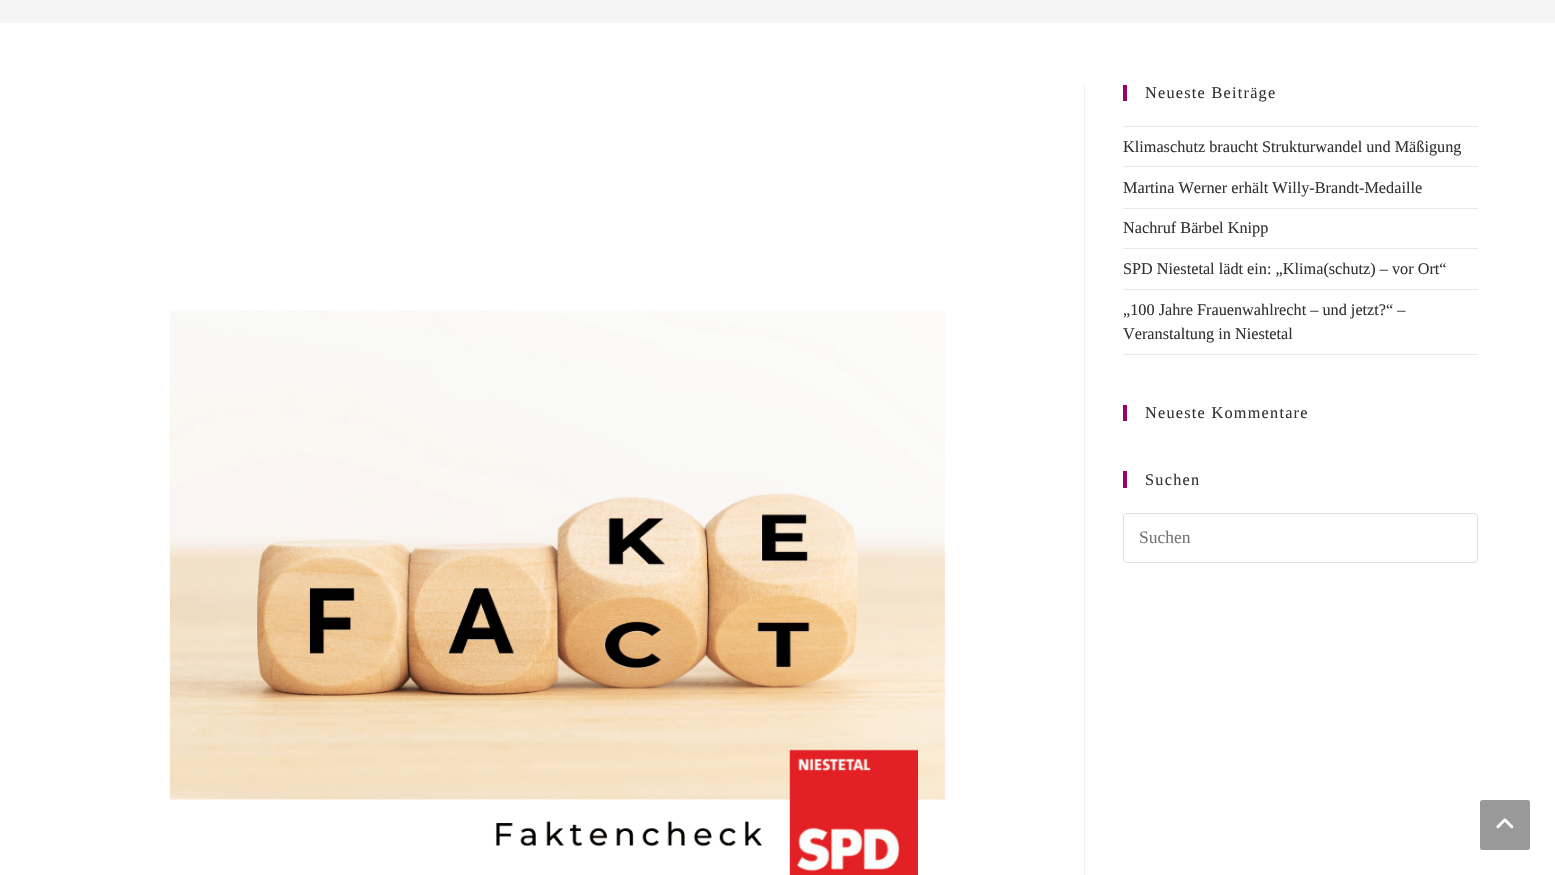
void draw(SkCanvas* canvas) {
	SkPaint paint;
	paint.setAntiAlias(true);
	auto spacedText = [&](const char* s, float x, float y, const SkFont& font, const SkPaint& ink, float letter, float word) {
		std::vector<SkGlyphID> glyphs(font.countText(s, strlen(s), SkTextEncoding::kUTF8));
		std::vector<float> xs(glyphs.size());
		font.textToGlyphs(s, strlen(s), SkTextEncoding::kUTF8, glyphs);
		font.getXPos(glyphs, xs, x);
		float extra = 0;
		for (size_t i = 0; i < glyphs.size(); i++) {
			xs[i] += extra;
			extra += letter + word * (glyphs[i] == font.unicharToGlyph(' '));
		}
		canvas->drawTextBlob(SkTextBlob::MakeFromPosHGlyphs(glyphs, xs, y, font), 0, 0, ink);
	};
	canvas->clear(0xffffffff);
	paint.setColor(0xfff5f5f5);
	canvas->drawRect(SkRect::MakeXYWH(0, 0, 1555, 23), paint);
	paint.setColor(0xfff1f1f1);
	canvas->drawRect(SkRect::MakeXYWH(1084, 85, 1, 790), paint);
	canvas->drawImageRect(SkImages::DeferredFromEncodedData(SkData::MakeFromFileName("img1.png")), SkRect::MakeXYWH(169, 310, 776, 565), SkSamplingOptions());
	paint.setColor(0xff980267);
	canvas->drawRect(SkRect::MakeXYWH(1123, 85, 4, 16), paint);
	SkFont f1(fontMgr->matchFamilyStyle("Liberation Serif", SkFontStyle::Normal()), 16.25);
	f1.setSubpixel(true);
	paint.setColor(0xff333333);
	spacedText("Neueste Beiträge", 1145, 98, f1, paint, 1.25, 0);
	paint.setColor(0xffe9e9e9);
	canvas->drawRect(SkRect::MakeXYWH(1123, 126, 355, 1), paint);
	canvas->drawRect(SkRect::MakeXYWH(1123, 166, 355, 1), paint);
	paint.setColor(0xff333333);
	canvas->drawString("Klimaschutz braucht Strukturwandel und Mäßigung", 1123, 152, f1, paint);
	paint.setColor(0xffe9e9e9);
	canvas->drawRect(SkRect::MakeXYWH(1123, 208, 355, 1), paint);
	paint.setColor(0xff333333);
	canvas->drawString("Martina Werner erhält Willy-Brandt-Medaille", 1123, 193, f1, paint);
	paint.setColor(0xffe9e9e9);
	canvas->drawRect(SkRect::MakeXYWH(1123, 248, 355, 1), paint);
	paint.setColor(0xff333333);
	canvas->drawString("Nachruf Bärbel Knipp", 1123, 233, f1, paint);
	paint.setColor(0xffe9e9e9);
	canvas->drawRect(SkRect::MakeXYWH(1123, 289, 355, 1), paint);
	paint.setColor(0xff333333);
	canvas->drawString("SPD Niestetal lädt ein: „Klima(schutz) – vor Ort“", 1123, 274, f1, paint);
	paint.setColor(0xffe9e9e9);
	canvas->drawRect(SkRect::MakeXYWH(1123, 354, 355, 1), paint);
	paint.setColor(0xff333333);
	canvas->drawString("„100 Jahre Frauenwahlrecht – und jetzt?“ –", 1123, 315, f1, paint);
	canvas->drawString("Veranstaltung in Niestetal", 1123, 339, f1, paint);
	paint.setColor(0xff980267);
	canvas->drawRect(SkRect::MakeXYWH(1123, 405, 4, 16), paint);
	paint.setColor(0xff333333);
	spacedText("Neueste Kommentare", 1145, 418, f1, paint, 1.25, 0);
	paint.setColor(0xff980267);
	canvas->drawRect(SkRect::MakeXYWH(1123, 471, 4, 17), paint);
	paint.setColor(0xff333333);
	spacedText("Suchen", 1145, 485, f1, paint, 1.25, 0);
	paint.setStroke(true);
	paint.setStrokeWidth(1);
	paint.setColor(0xffdddddd);
	canvas->drawRoundRect(SkRect::MakeXYWH(1123.5, 513.5, 354, 49), 3.5, 3.5, paint);
	SkFont f2(fontMgr->matchFamilyStyle("Liberation Serif", SkFontStyle::Normal()), 17.5);
	f2.setSubpixel(true);
	paint.setStroke(false);
	paint.setColor(0xff757575);
	canvas->drawString("Suchen", 1139, 543, f2, paint);
	paint.setColor(0xff999999);
	canvas->drawRoundRect(SkRect::MakeXYWH(1480, 800, 50, 50), 2.5, 2.5, paint);
	canvas->drawImageRect(SkImages::DeferredFromEncodedData(SkData::MakeFromFileName("img2.png")), SkRect::MakeXYWH(1496, 818, 18, 11), SkSamplingOptions());
}
